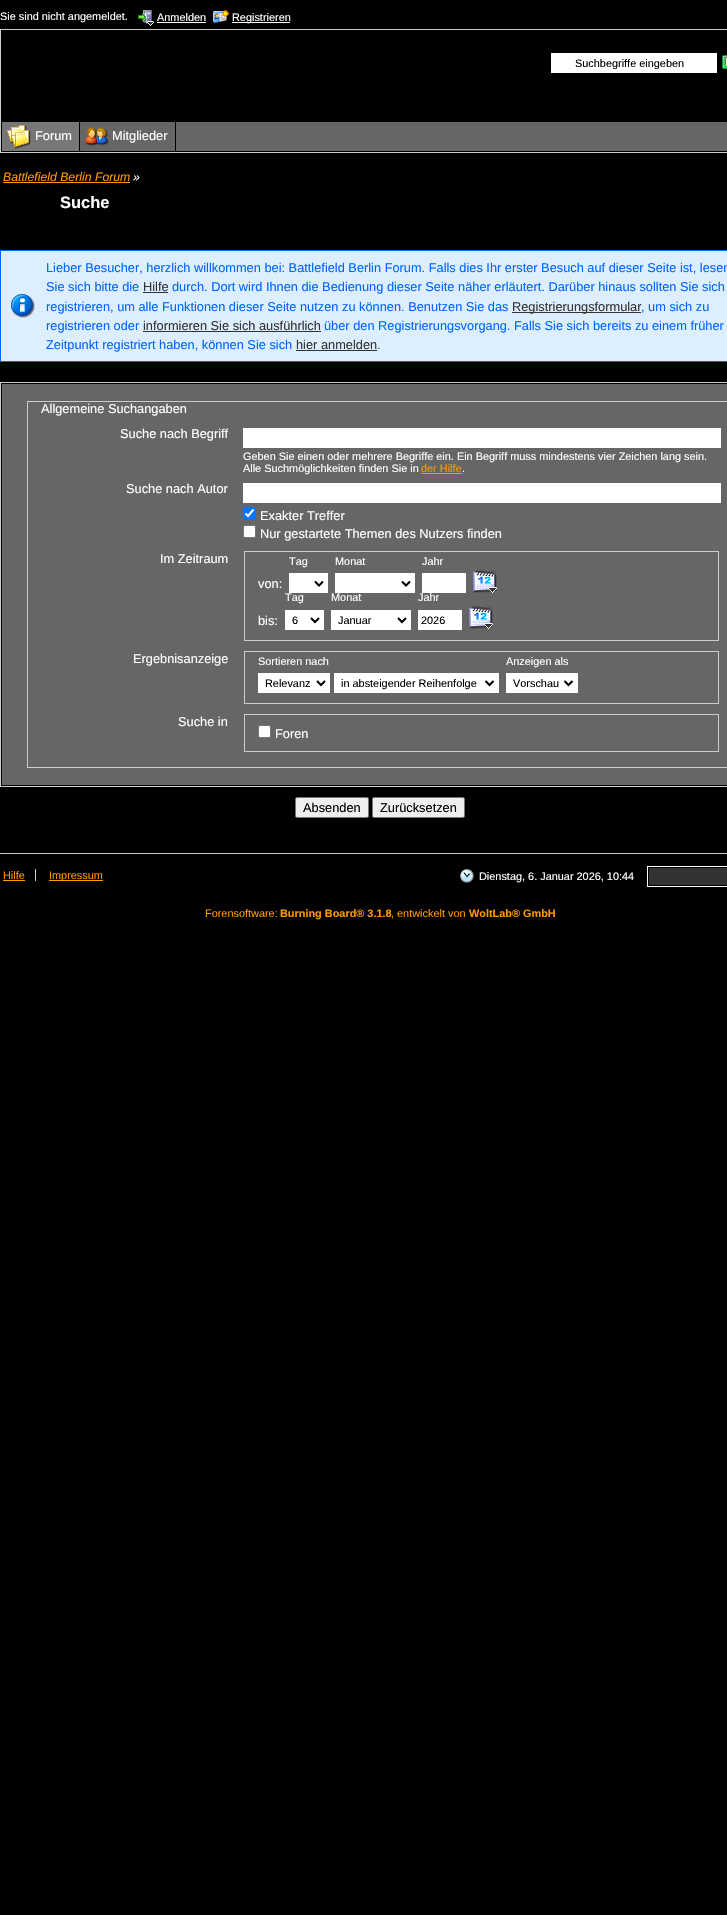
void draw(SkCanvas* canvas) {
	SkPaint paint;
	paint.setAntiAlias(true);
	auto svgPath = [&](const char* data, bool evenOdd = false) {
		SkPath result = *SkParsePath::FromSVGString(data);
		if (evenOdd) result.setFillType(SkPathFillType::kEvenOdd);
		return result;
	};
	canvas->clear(0xff000000);
	SkFont f1(fontMgr->matchFamilyStyle("Liberation Sans", SkFontStyle::Normal()), 10.9);
	f1.setSubpixel(true);
	paint.setColor(0xffffffff);
	canvas->drawString("Sie sind nicht angemeldet.", 0, 20, f1, paint);
	canvas->drawImageRect(SkImages::DeferredFromEncodedData(SkData::MakeFromFileName("img1.png")), SkRect::MakeXYWH(138, 10, 16, 16), SkSamplingOptions());
	canvas->drawString("Anmelden", 157, 21, f1, paint);
	canvas->drawRect(SkRect::MakeXYWH(157, 22, 49, 1), paint);
	canvas->drawImageRect(SkImages::DeferredFromEncodedData(SkData::MakeFromFileName("img2.png")), SkRect::MakeXYWH(213, 10, 16, 13), SkSamplingOptions());
	canvas->drawRect(SkRect::MakeXYWH(232, 22, 58, 1), paint);
	canvas->drawString("Registrieren", 232, 21, f1, paint);
	paint.setColor(0xffcccccc);
	canvas->drawRect(SkRect::MakeXYWH(0, 29, 727, 1), paint);
	canvas->drawRect(SkRect::MakeXYWH(0, 152, 727, 1), paint);
	canvas->drawRect(SkRect::MakeXYWH(0, 121, 1, 32), paint);
	canvas->drawRect(SkRect::MakeXYWH(0, 29, 1, 93), paint);
	paint.setColor(0xffffffff);
	canvas->drawRect(SkRect::MakeXYWH(551, 53, 166, 20), paint);
	canvas->save();
	canvas->clipRect(SkRect::MakeXYWH(575, 57, 141, 12));
	paint.setColor(0xff000000);
	canvas->drawString("Suchbegriffe eingeben", 575, 67, f1, paint);
	canvas->restore();
	canvas->drawImageRect(SkImages::DeferredFromEncodedData(SkData::MakeFromFileName("img3.png")), SkRect::MakeXYWH(722, 55, 5, 14), SkSamplingOptions());
	paint.setColor(0xff666666);
	canvas->drawRect(SkRect::MakeXYWH(176, 122, 551, 29), paint);
	paint.setColor(0xff777777);
	canvas->drawRect(SkRect::MakeXYWH(2, 122, 77, 29), paint);
	canvas->drawImageRect(SkImages::DeferredFromEncodedData(SkData::MakeFromFileName("img4.png")), SkRect::MakeXYWH(7, 125, 24, 24), SkSamplingOptions());
	SkFont f2(fontMgr->matchFamilyStyle("Liberation Sans", SkFontStyle::Normal()), 12.8);
	f2.setSubpixel(true);
	paint.setColor(0xffffffff);
	canvas->drawString("Forum", 35, 140, f2, paint);
	paint.setColor(0xff666666);
	canvas->drawRect(SkRect::MakeXYWH(80, 122, 95, 29), paint);
	canvas->drawImageRect(SkImages::DeferredFromEncodedData(SkData::MakeFromFileName("img5.png")), SkRect::MakeXYWH(85, 128, 24, 18), SkSamplingOptions());
	paint.setColor(0xffffffff);
	canvas->drawString("Mitglieder", 112, 140, f2, paint);
	SkFont f3(fontMgr->matchFamilyStyle("Liberation Sans", SkFontStyle::Italic()), 12.25);
	f3.setSubpixel(true);
	paint.setColor(0xffff9900);
	canvas->drawString("Battlefield Berlin Forum", 3, 181, f3, paint);
	canvas->drawRect(SkRect::MakeXYWH(3, 182, 127, 1), paint);
	paint.setColor(0xffffffff);
	canvas->drawString("»", 133, 181, f3, paint);
	SkFont f4(fontMgr->matchFamilyStyle("Liberation Sans", SkFontStyle::Bold()), 16.5);
	f4.setSubpixel(true);
	canvas->drawString("Suche", 60, 208, f4, paint);
	paint.setColor(0xffddeeff);
	canvas->drawRect(SkRect::MakeXYWH(1, 251, 726, 110), paint);
	canvas->drawImageRect(SkImages::DeferredFromEncodedData(SkData::MakeFromFileName("img6.png")), SkRect::MakeXYWH(11, 294, 24, 24), SkSamplingOptions());
	paint.setStroke(true);
	paint.setStrokeWidth(1);
	paint.setColor(0xff0066ff);
	canvas->drawRect(SkRect::MakeXYWH(0.5, 250.5, 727, 111), paint);
	paint.setStroke(false);
	canvas->drawString("Lieber Besucher, herzlich willkommen bei: Battlefield Berlin Forum. Falls dies Ihr erster Besuch auf dieser Seite ist, lesen", 46, 272, f2, paint);
	canvas->drawString("Sie sich bitte die", 46, 291, f2, paint);
	paint.setColor(0xff333333);
	canvas->drawString("Hilfe", 143, 291, f2, paint);
	canvas->drawRect(SkRect::MakeXYWH(143, 292, 25, 1), paint);
	paint.setColor(0xff0066ff);
	canvas->drawString("durch. Dort wird Ihnen die Bedienung dieser Seite näher erläutert. Darüber hinaus sollten Sie sich", 172, 291, f2, paint);
	canvas->drawString("registrieren, um alle Funktionen dieser Seite nutzen zu können. Benutzen Sie das", 46, 311, f2, paint);
	paint.setColor(0xff333333);
	canvas->drawRect(SkRect::MakeXYWH(512, 312, 129, 1), paint);
	canvas->drawString("Registrierungsformular", 512, 311, f2, paint);
	paint.setColor(0xff0066ff);
	canvas->drawString(", um sich zu", 641, 311, f2, paint);
	canvas->drawString("registrieren oder", 46, 330, f2, paint);
	paint.setColor(0xff333333);
	canvas->drawString("informieren Sie sich ausführlich", 143, 330, f2, paint);
	canvas->drawRect(SkRect::MakeXYWH(143, 331, 178, 1), paint);
	paint.setColor(0xff0066ff);
	canvas->drawString("über den Registrierungsvorgang. Falls Sie sich bereits zu einem früher", 324, 330, f2, paint);
	canvas->drawString("Zeitpunkt registriert haben, können Sie sich", 46, 349, f2, paint);
	paint.setColor(0xff333333);
	canvas->drawString("hier anmelden", 296, 349, f2, paint);
	canvas->drawRect(SkRect::MakeXYWH(296, 350, 81, 1), paint);
	paint.setColor(0xff0066ff);
	canvas->drawString(".", 377, 349, f2, paint);
	paint.setStroke(true);
	paint.setColor(0xffcccccc);
	canvas->drawRect(SkRect::MakeXYWH(0.5, 382.5, 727, 404), paint);
	paint.setStroke(false);
	paint.setColor(0xff666666);
	canvas->drawRect(SkRect::MakeXYWH(2, 384, 725, 401), paint);
	paint.setStroke(true);
	paint.setColor(0xffcccccc);
	canvas->drawRect(SkRect::MakeXYWH(27.5, 401.5, 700, 366), paint);
	paint.setStroke(false);
	paint.setColor(0xffffffff);
	canvas->drawString("Allgemeine Suchangaben", 41, 413, f2, paint);
	canvas->drawString("Suche nach Begriff", 120, 438, f2, paint);
	canvas->drawRect(SkRect::MakeXYWH(243, 428, 478, 20), paint);
	canvas->drawString("Geben Sie einen oder mehrere Begriffe ein. Ein Begriff muss mindestens vier Zeichen lang sein.", 243, 460, f1, paint);
	canvas->drawString("Alle Suchmöglichkeiten finden Sie in", 243, 472, f1, paint);
	paint.setColor(0xffff9900);
	canvas->drawString("der Hilfe", 421, 472, f1, paint);
	canvas->drawRect(SkRect::MakeXYWH(421, 473, 41, 1), paint);
	paint.setColor(0xffffffff);
	canvas->drawString(".", 462, 472, f1, paint);
	canvas->drawString("Suche nach Autor", 126, 493, f2, paint);
	canvas->drawRect(SkRect::MakeXYWH(243, 483, 478, 20), paint);
	paint.setColor(0xff0075ff);
	canvas->drawRoundRect(SkRect::MakeXYWH(243, 507, 13, 13), 2, 2, paint);
	paint.setStroke(true);
	paint.setStrokeWidth(2.1);
	paint.setColor(0xffffffff);
	canvas->drawPath(svgPath("M245.5 513.5L248 516L253.5 509.5"), paint);
	paint.setStroke(false);
	canvas->drawString("Exakter Treffer", 260, 520, f2, paint);
	canvas->drawRoundRect(SkRect::MakeXYWH(243.5, 525.5, 12, 12), 1.5, 1.5, paint);
	paint.setStroke(true);
	paint.setStrokeWidth(1);
	paint.setColor(0xff767676);
	canvas->drawRoundRect(SkRect::MakeXYWH(243.5, 525.5, 12, 12), 1.5, 1.5, paint);
	paint.setStroke(false);
	paint.setColor(0xffffffff);
	canvas->drawString("Nur gestartete Themen des Nutzers finden", 260, 538, f2, paint);
	canvas->drawString("Im Zeitraum", 160, 563, f2, paint);
	paint.setStroke(true);
	paint.setColor(0xffcccccc);
	canvas->drawRect(SkRect::MakeXYWH(244.5, 551.5, 474, 89), paint);
	paint.setStroke(false);
	paint.setColor(0xffffffff);
	canvas->drawString("Tag", 289, 565, f1, paint);
	canvas->drawRect(SkRect::MakeXYWH(289, 573, 39, 20), paint);
	paint.setStroke(true);
	paint.setStrokeWidth(2);
	paint.setColor(0xff000000);
	canvas->drawPath(svgPath("M315 581.5L319 585.5L323 581.5"), paint);
	paint.setStroke(false);
	paint.setColor(0xffffffff);
	canvas->drawString("Monat", 335, 565, f1, paint);
	canvas->drawRect(SkRect::MakeXYWH(335, 573, 80, 20), paint);
	paint.setStroke(true);
	paint.setColor(0xff000000);
	canvas->drawPath(svgPath("M402 581.5L406 585.5L410 581.5"), paint);
	paint.setStroke(false);
	paint.setColor(0xffffffff);
	canvas->drawString("Jahr", 422, 565, f1, paint);
	canvas->drawRect(SkRect::MakeXYWH(422, 573, 44, 20), paint);
	canvas->drawString("von:", 258, 588, f2, paint);
	canvas->drawImageRect(SkImages::DeferredFromEncodedData(SkData::MakeFromFileName("img7.png")), SkRect::MakeXYWH(473, 569, 24, 24), SkSamplingOptions());
	canvas->drawString("bis:", 258, 625, f2, paint);
	canvas->drawString("Tag", 285, 601, f1, paint);
	canvas->drawRect(SkRect::MakeXYWH(285, 610, 39, 20), paint);
	paint.setStroke(true);
	paint.setColor(0xff000000);
	canvas->drawPath(svgPath("M311 618L315 622L319 618"), paint);
	paint.setStroke(false);
	canvas->drawString("6", 292, 624, f1, paint);
	paint.setColor(0xffffffff);
	canvas->drawString("Monat", 331, 601, f1, paint);
	canvas->drawRect(SkRect::MakeXYWH(331, 610, 80, 20), paint);
	paint.setStroke(true);
	paint.setColor(0xff000000);
	canvas->drawPath(svgPath("M398 618L402 622L406 618"), paint);
	paint.setStroke(false);
	canvas->drawString("Januar", 338, 624, f1, paint);
	paint.setColor(0xffffffff);
	canvas->drawString("Jahr", 418, 601, f1, paint);
	canvas->drawRect(SkRect::MakeXYWH(418, 610, 44, 20), paint);
	paint.setColor(0xff000000);
	canvas->drawString("2026", 421, 624, f1, paint);
	canvas->drawImageRect(SkImages::DeferredFromEncodedData(SkData::MakeFromFileName("img7.png")), SkRect::MakeXYWH(469, 605, 24, 24), SkSamplingOptions());
	paint.setColor(0xffffffff);
	canvas->drawString("Ergebnisanzeige", 133, 663, f2, paint);
	paint.setStroke(true);
	paint.setStrokeWidth(1);
	paint.setColor(0xffcccccc);
	canvas->drawRect(SkRect::MakeXYWH(244.5, 651.5, 474, 52), paint);
	paint.setStroke(false);
	paint.setColor(0xffffffff);
	canvas->drawString("Sortieren nach", 258, 665, f1, paint);
	canvas->drawRect(SkRect::MakeXYWH(258, 673, 72, 20), paint);
	paint.setStroke(true);
	paint.setStrokeWidth(2);
	paint.setColor(0xff000000);
	canvas->drawPath(svgPath("M317 681L321 685L325 681"), paint);
	paint.setStroke(false);
	canvas->drawString("Relevanz", 265, 687, f1, paint);
	paint.setColor(0xffffffff);
	canvas->drawRect(SkRect::MakeXYWH(334, 673, 165, 20), paint);
	paint.setStroke(true);
	paint.setColor(0xff000000);
	canvas->drawPath(svgPath("M485.5 681L489.5 685L493.5 681"), paint);
	paint.setStroke(false);
	canvas->drawString("in absteigender Reihenfolge", 341, 687, f1, paint);
	paint.setColor(0xffffffff);
	canvas->drawString("Anzeigen als", 506, 665, f1, paint);
	canvas->drawRect(SkRect::MakeXYWH(506, 673, 72, 20), paint);
	paint.setStroke(true);
	paint.setColor(0xff000000);
	canvas->drawPath(svgPath("M564.5 681L568.5 685L572.5 681"), paint);
	paint.setStroke(false);
	canvas->drawString("Vorschau", 513, 687, f1, paint);
	paint.setColor(0xffffffff);
	canvas->drawString("Suche in", 178, 726, f2, paint);
	paint.setStroke(true);
	paint.setStrokeWidth(1);
	paint.setColor(0xffcccccc);
	canvas->drawRect(SkRect::MakeXYWH(244.5, 714.5, 474, 37), paint);
	paint.setStroke(false);
	paint.setColor(0xffffffff);
	canvas->drawRoundRect(SkRect::MakeXYWH(258.5, 725.5, 12, 12), 1.5, 1.5, paint);
	paint.setStroke(true);
	paint.setColor(0xff767676);
	canvas->drawRoundRect(SkRect::MakeXYWH(258.5, 725.5, 12, 12), 1.5, 1.5, paint);
	paint.setStroke(false);
	paint.setColor(0xffffffff);
	canvas->drawString("Foren", 275, 738, f2, paint);
	paint.setColor(0xffefefef);
	canvas->drawRoundRect(SkRect::MakeXYWH(295.5, 797.5, 73, 20), 1.5, 1.5, paint);
	paint.setStroke(true);
	paint.setColor(0xff767676);
	canvas->drawRoundRect(SkRect::MakeXYWH(295.5, 797.5, 73, 20), 1.5, 1.5, paint);
	paint.setStroke(false);
	paint.setColor(0xff000000);
	canvas->drawString("Absenden", 303, 812, f2, paint);
	paint.setColor(0xffefefef);
	canvas->drawRoundRect(SkRect::MakeXYWH(372.5, 797.5, 92, 20), 1.5, 1.5, paint);
	paint.setStroke(true);
	paint.setColor(0xff767676);
	canvas->drawRoundRect(SkRect::MakeXYWH(372.5, 797.5, 92, 20), 1.5, 1.5, paint);
	paint.setStroke(false);
	paint.setColor(0xff000000);
	canvas->drawString("Zurücksetzen", 380, 812, f2, paint);
	paint.setColor(0xffcccccc);
	canvas->drawRect(SkRect::MakeXYWH(0, 853, 727, 1), paint);
	paint.setColor(0xffff9900);
	canvas->drawString("Hilfe", 3, 879, f1, paint);
	canvas->drawRect(SkRect::MakeXYWH(3, 880, 22, 1), paint);
	paint.setColor(0xffcccccc);
	canvas->drawRect(SkRect::MakeXYWH(35, 869, 1, 12), paint);
	paint.setColor(0xffff9900);
	canvas->drawRect(SkRect::MakeXYWH(49, 880, 54, 1), paint);
	canvas->drawString("Impressum", 49, 879, f1, paint);
	canvas->drawImageRect(SkImages::DeferredFromEncodedData(SkData::MakeFromFileName("img8.png")), SkRect::MakeXYWH(460, 869, 14, 14), SkSamplingOptions());
	paint.setColor(0xffffffff);
	canvas->drawString("Dienstag, 6. Januar 2026, 10:44", 479, 880, f1, paint);
	paint.setStroke(true);
	canvas->drawRect(SkRect::MakeXYWH(647.5, 866.5, 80, 20), paint);
	paint.setStroke(false);
	paint.setColor(0xff333333);
	canvas->drawRect(SkRect::MakeXYWH(649, 868, 78, 17), paint);
	paint.setColor(0xffff9900);
	canvas->drawString("Forensoftware:", 205, 917, f1, paint);
	SkFont f5(fontMgr->matchFamilyStyle("Liberation Sans", SkFontStyle::Bold()), 10.9);
	f5.setSubpixel(true);
	canvas->drawString("Burning Board® 3.1.8", 280, 917, f5, paint);
	canvas->drawString(", entwickelt von", 391, 917, f1, paint);
	canvas->drawString("WoltLab® GmbH", 469, 917, f5, paint);
}
